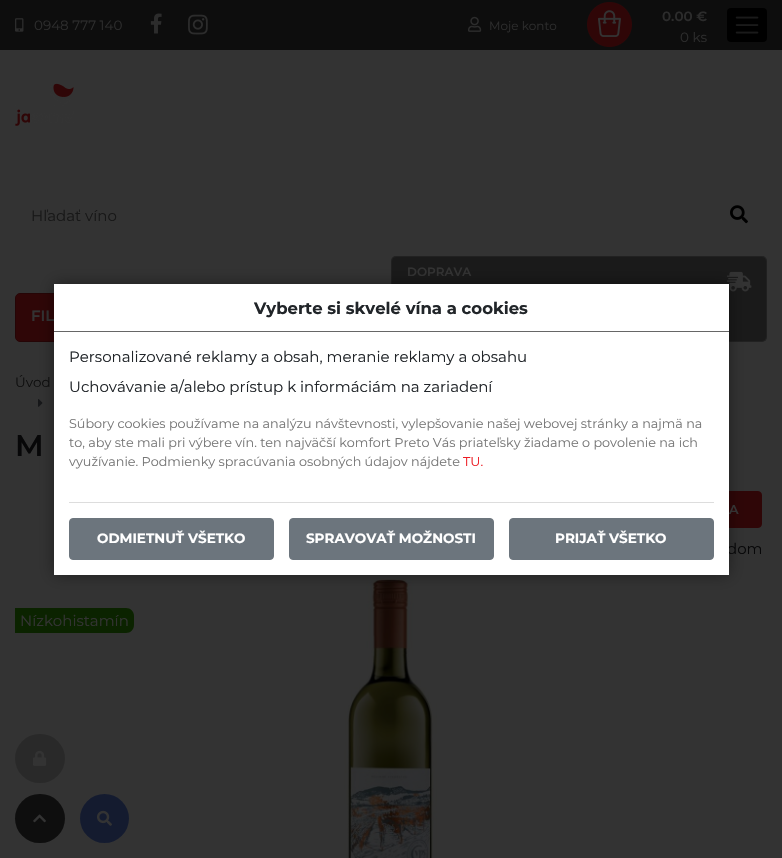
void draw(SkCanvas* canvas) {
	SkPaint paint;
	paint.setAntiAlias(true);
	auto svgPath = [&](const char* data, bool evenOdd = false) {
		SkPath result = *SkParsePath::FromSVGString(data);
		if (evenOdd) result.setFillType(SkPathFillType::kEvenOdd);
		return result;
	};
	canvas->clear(0xff333333);
	paint.setColor(0xff0d0d0d);
	canvas->drawRect(SkRect::MakeXYWH(0, 0, 782, 50), paint);
	canvas->drawImageRect(SkImages::DeferredFromEncodedData(SkData::MakeFromFileName("img1.png")), SkRect::MakeXYWH(15, 18, 9, 14), SkSamplingOptions());
	SkFont f1(fontMgr->matchFamilyStyle("Montserrat", SkFontStyle::Normal()), 13.5);
	f1.setSubpixel(true);
	paint.setColor(0xff2c2c2c);
	canvas->drawString("0948 777 140", 34, 30, f1, paint);
	canvas->drawImageRect(SkImages::DeferredFromEncodedData(SkData::MakeFromFileName("img2.png")), SkRect::MakeXYWH(150, 13, 12, 21), SkSamplingOptions());
	canvas->drawImageRect(SkImages::DeferredFromEncodedData(SkData::MakeFromFileName("img3.png")), SkRect::MakeXYWH(188, 14, 20, 21), SkSamplingOptions());
	canvas->drawImageRect(SkImages::DeferredFromEncodedData(SkData::MakeFromFileName("img4.png")), SkRect::MakeXYWH(468, 16, 14, 16), SkSamplingOptions());
	SkFont f2(fontMgr->matchFamilyStyle("Montserrat", SkFontStyle::Normal()), 12);
	f2.setSubpixel(true);
	canvas->drawString("Moje konto", 489, 30, f2, paint);
	canvas->drawImageRect(SkImages::DeferredFromEncodedData(SkData::MakeFromFileName("img5.png")), SkRect::MakeXYWH(587, 2, 45, 45), SkSamplingOptions());
	SkFont f3(fontMgr->matchFamilyStyle("Montserrat", SkFontStyle(600, SkFontStyle::kNormal_Width, SkFontStyle::kUpright_Slant)), 13.5);
	f3.setSubpixel(true);
	canvas->drawString("0.00 €", 662, 21, f3, paint);
	canvas->drawString("0 ks", 680, 42, f1, paint);
	paint.setColor(0xff000000);
	canvas->drawRoundRect(SkRect::MakeXYWH(727, 8, 40, 34), 4, 4, paint);
	canvas->drawImageRect(SkImages::DeferredFromEncodedData(SkData::MakeFromFileName("img6.png")), SkRect::MakeXYWH(735, 16, 24, 18), SkSamplingOptions());
	canvas->drawImageRect(SkImages::DeferredFromEncodedData(SkData::MakeFromFileName("img7.png")), SkRect::MakeXYWH(15, 83, 59, 43), SkSamplingOptions());
	SkFont f4(fontMgr->matchFamilyStyle("Montserrat", SkFontStyle::Normal()), 15);
	f4.setSubpixel(true);
	paint.setColor(0xff171717);
	canvas->drawString("Hľadať víno", 31, 221, f4, paint);
	canvas->drawImageRect(SkImages::DeferredFromEncodedData(SkData::MakeFromFileName("img8.png")), SkRect::MakeXYWH(730, 205, 18, 19), SkSamplingOptions());
	paint.setColor(0xff1a1a1a);
	canvas->drawRoundRect(SkRect::MakeXYWH(391, 256, 376, 86), 5, 5, paint);
	paint.setStroke(true);
	paint.setStrokeWidth(1);
	paint.setColor(0x40333333);
	canvas->drawRoundRect(SkRect::MakeXYWH(391.5, 256.5, 375, 85), 4.5, 4.5, paint);
	SkFont f5(fontMgr->matchFamilyStyle("Montserrat", SkFontStyle(600, SkFontStyle::kNormal_Width, SkFontStyle::kUpright_Slant)), 12);
	f5.setSubpixel(true);
	paint.setStroke(false);
	paint.setColor(0xff333333);
	canvas->drawString("DOPRAVA", 407, 276, f5, paint);
	canvas->drawImageRect(SkImages::DeferredFromEncodedData(SkData::MakeFromFileName("img9.png")), SkRect::MakeXYWH(727, 271, 25, 21), SkSamplingOptions());
	paint.setColor(0xff2f0607);
	canvas->drawRoundRect(SkRect::MakeXYWH(15.5, 293.5, 360, 48), 4.5, 4.5, paint);
	paint.setStroke(true);
	paint.setColor(0xff250506);
	canvas->drawRoundRect(SkRect::MakeXYWH(15.5, 293.5, 360, 48), 4.5, 4.5, paint);
	SkFont f6(fontMgr->matchFamilyStyle("Montserrat", SkFontStyle(600, SkFontStyle::kNormal_Width, SkFontStyle::kUpright_Slant)), 15);
	f6.setSubpixel(true);
	paint.setStroke(false);
	paint.setColor(0xff333333);
	canvas->drawString("FIL", 31, 321, f6, paint);
	paint.setColor(0xff292929);
	canvas->drawRoundRect(SkRect::MakeXYWH(15, 734, 50, 49), 24.5, 24.5, paint);
	canvas->drawImageRect(SkImages::DeferredFromEncodedData(SkData::MakeFromFileName("img10.png")), SkRect::MakeXYWH(33, 750, 14, 16), SkSamplingOptions());
	paint.setColor(0xff0e0e0e);
	canvas->drawRoundRect(SkRect::MakeXYWH(15, 794, 50, 49), 24.5, 24.5, paint);
	canvas->drawImageRect(SkImages::DeferredFromEncodedData(SkData::MakeFromFileName("img11.png")), SkRect::MakeXYWH(33, 814, 13, 9), SkSamplingOptions());
	paint.setColor(0xff141b2f);
	canvas->drawCircle(104.5, 818.5, 24.5, paint);
	canvas->drawImageRect(SkImages::DeferredFromEncodedData(SkData::MakeFromFileName("img12.png")), SkRect::MakeXYWH(97, 810, 15, 16), SkSamplingOptions());
	canvas->drawImageRect(SkImages::DeferredFromEncodedData(SkData::MakeFromFileName("img13.png")), SkRect::MakeXYWH(38, 399, 5, 8), SkSamplingOptions());
	paint.setColor(0xff2f0607);
	canvas->drawRoundRect(SkRect::MakeXYWH(567.5, 491.5, 194, 36), 3.5, 3.5, paint);
	paint.setStroke(true);
	canvas->drawRoundRect(SkRect::MakeXYWH(567.5, 491.5, 194, 36), 3.5, 3.5, paint);
	canvas->drawImageRect(SkImages::DeferredFromEncodedData(SkData::MakeFromFileName("img14.png")), SkRect::MakeXYWH(344, 578, 93, 280), SkSamplingOptions());
	paint.setStroke(false);
	paint.setColor(0x66000000);
	paint.setMaskFilter(SkMaskFilter::MakeBlur(kNormal_SkBlurStyle, 7.5));
	canvas->drawRect(SkRect::MakeXYWH(54, 284, 675, 291), paint);
	paint.setMaskFilter(nullptr);
	SkFont f7(fontMgr->matchFamilyStyle("Montserrat", SkFontStyle(600, SkFontStyle::kNormal_Width, SkFontStyle::kUpright_Slant)), 12.75);
	f7.setSubpixel(true);
	paint.setColor(0xff333333);
	canvas->drawString("A", 729, 514, f7, paint);
	paint.setColor(0xff070708);
	canvas->drawString("dom", 727, 554, f4, paint);
	paint.setColor(0xffffffff);
	canvas->drawRect(SkRect::MakeXYWH(54, 284, 675, 291), paint);
	paint.setColor(0xff666666);
	canvas->drawRect(SkRect::MakeXYWH(54, 331, 675, 1), paint);
	SkFont f8(fontMgr->matchFamilyStyle("Montserrat", SkFontStyle::Bold()), 16.5);
	f8.setSubpixel(true);
	paint.setColor(0xff212529);
	canvas->drawString("Vyberte si skvelé vína a cookies", 254, 314, f8, paint);
	canvas->drawString("Personalizované reklamy a obsah, meranie reklamy a obsahu", 69, 362, f4, paint);
	canvas->drawString("Uchovávanie a/alebo prístup k informáciám na zariadení", 69, 392, f4, paint);
	SkFont f9(fontMgr->matchFamilyStyle("Montserrat", SkFontStyle::Normal()), 12.75);
	f9.setSubpixel(true);
	paint.setColor(0xff777777);
	canvas->drawString("Súbory cookies používame na analýzu návštevnosti, vylepšovanie našej webovej stránky a najmä na", 69, 428, f9, paint);
	canvas->drawString("to, aby ste mali pri výbere vín. ten najväčší komfort Preto Vás priateľsky žiadame o povolenie na ich", 69, 447, f9, paint);
	canvas->drawString("využívanie. Podmienky spracúvania osobných údajov nájdete", 69, 466, f9, paint);
	paint.setColor(0xffed1c24);
	canvas->drawString("TU.", 463, 466, f9, paint);
	paint.setColor(0xffdddddd);
	canvas->drawRect(SkRect::MakeXYWH(69, 502, 645, 1), paint);
	paint.setColor(0xff6c757d);
	canvas->drawRoundRect(SkRect::MakeXYWH(69.5, 518.5, 204, 41), 3.5, 3.5, paint);
	paint.setStroke(true);
	canvas->drawRoundRect(SkRect::MakeXYWH(69.5, 518.5, 204, 41), 3.5, 3.5, paint);
	SkFont f10(fontMgr->matchFamilyStyle("Montserrat", SkFontStyle::Bold()), 13.5);
	f10.setSubpixel(true);
	paint.setStroke(false);
	paint.setColor(0xffffffff);
	canvas->drawString("ODMIETNUŤ VŠETKO", 97, 543, f10, paint);
	paint.setColor(0xff6c757d);
	canvas->drawRoundRect(SkRect::MakeXYWH(289.5, 518.5, 204, 41), 3.5, 3.5, paint);
	paint.setStroke(true);
	canvas->drawRoundRect(SkRect::MakeXYWH(289.5, 518.5, 204, 41), 3.5, 3.5, paint);
	paint.setStroke(false);
	paint.setColor(0xffffffff);
	canvas->drawString("SPRAVOVAŤ MOŽNOSTI", 306, 543, f10, paint);
	paint.setColor(0xff6c757d);
	canvas->drawRoundRect(SkRect::MakeXYWH(509.5, 518.5, 204, 41), 3.5, 3.5, paint);
	paint.setStroke(true);
	canvas->drawRoundRect(SkRect::MakeXYWH(509.5, 518.5, 204, 41), 3.5, 3.5, paint);
	paint.setStroke(false);
	paint.setColor(0xffffffff);
	canvas->drawString("PRIJAŤ VŠETKO", 555, 543, f10, paint);
	paint.setColor(0xff0e0e0e);
	canvas->drawString("Úvod", 15, 387, f1, paint);
	SkFont f11(fontMgr->matchFamilyStyle("Montserrat", SkFontStyle(600, SkFontStyle::kNormal_Width, SkFontStyle::kUpright_Slant)), 30);
	f11.setSubpixel(true);
	paint.setColor(0xff070708);
	canvas->drawString("M", 15, 456, f11, paint);
	paint.setColor(0xff0b2300);
	canvas->drawPath(svgPath("M15 608H126C130.5 608 134 611.5 134 616V625C134 629.5 130.5 633 126 633H15Z"), paint);
	paint.setColor(0xff333333);
	canvas->drawString("Nízkohistamín", 20, 626, f4, paint);
}
